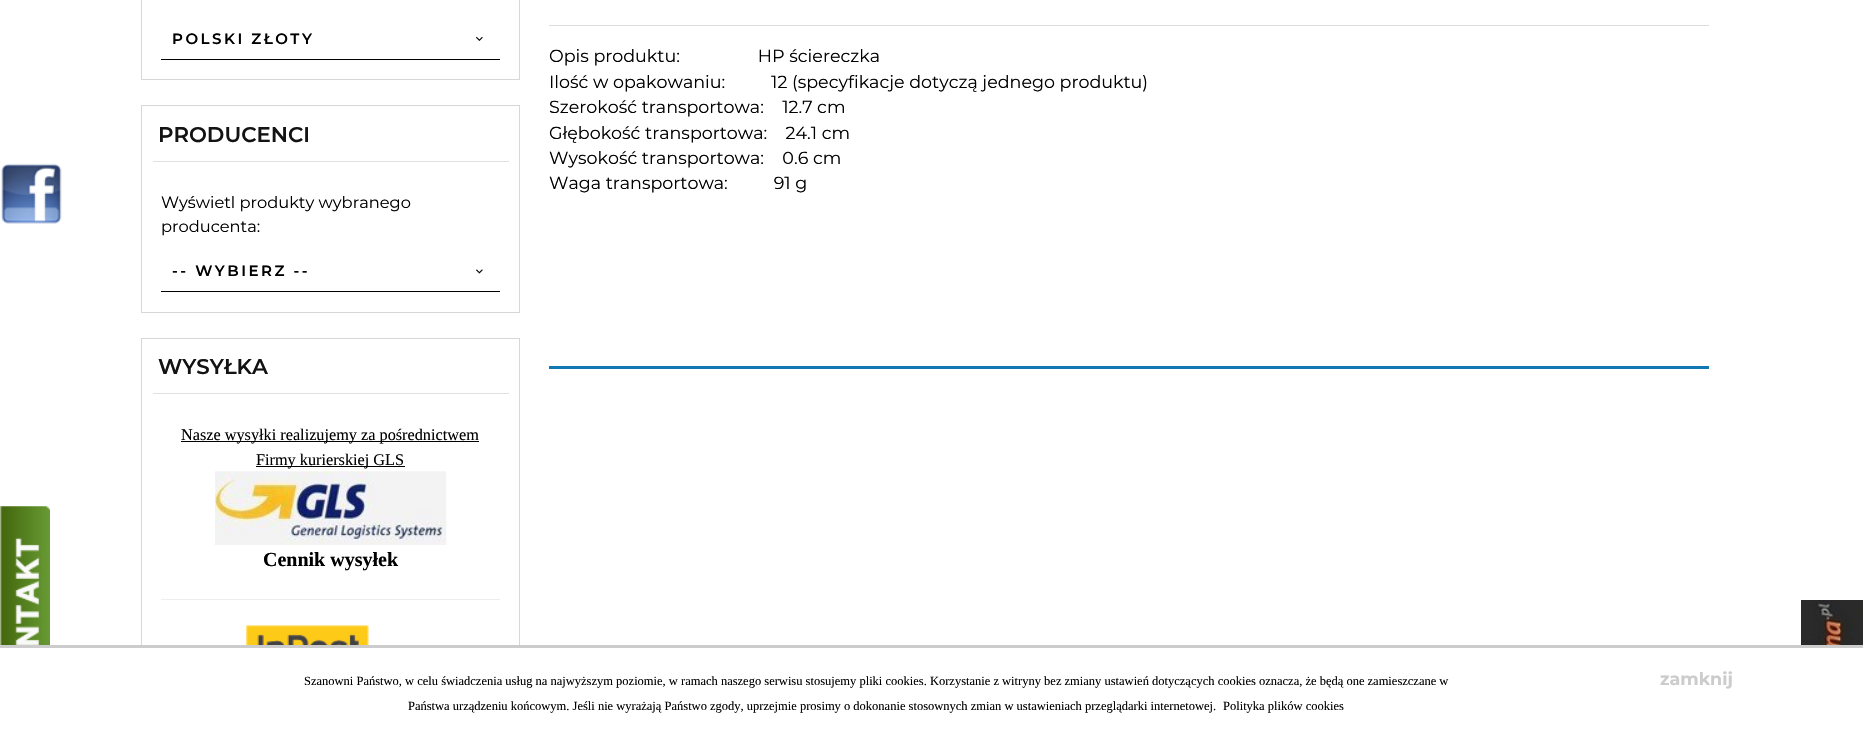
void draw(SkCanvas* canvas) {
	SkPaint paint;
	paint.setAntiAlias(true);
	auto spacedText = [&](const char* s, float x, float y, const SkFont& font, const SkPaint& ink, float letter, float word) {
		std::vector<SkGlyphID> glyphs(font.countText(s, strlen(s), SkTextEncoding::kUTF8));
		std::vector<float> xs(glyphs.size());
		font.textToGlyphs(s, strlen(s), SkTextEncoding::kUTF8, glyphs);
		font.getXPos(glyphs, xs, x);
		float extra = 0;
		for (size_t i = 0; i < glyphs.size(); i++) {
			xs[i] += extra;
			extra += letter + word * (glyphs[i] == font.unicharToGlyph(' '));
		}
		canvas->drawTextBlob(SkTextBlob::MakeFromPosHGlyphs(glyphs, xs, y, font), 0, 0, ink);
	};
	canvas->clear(0xffffffff);
	paint.setStroke(true);
	paint.setStrokeWidth(1);
	paint.setColor(0xffd7d7d7);
	canvas->drawRect(SkRect::MakeXYWH(141.5, -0.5, 378, 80), paint);
	paint.setStroke(false);
	paint.setColor(0xff000000);
	canvas->drawRect(SkRect::MakeXYWH(161, 59, 339, 1), paint);
	SkFont f1(fontMgr->matchFamilyStyle("Montserrat", SkFontStyle(600, SkFontStyle::kNormal_Width, SkFontStyle::kUpright_Slant)), 15);
	f1.setSubpixel(true);
	spacedText("POLSKI ZŁOTY", 172, 44, f1, paint, 2.5, 0);
	canvas->drawImageRect(SkImages::DeferredFromEncodedData(SkData::MakeFromFileName("img1.png")), SkRect::MakeXYWH(476, 36, 7, 5), SkSamplingOptions());
	paint.setStroke(true);
	paint.setColor(0xffd7d7d7);
	canvas->drawRect(SkRect::MakeXYWH(141.5, 105.5, 378, 207), paint);
	paint.setStroke(false);
	paint.setColor(0xffe1e1e1);
	canvas->drawRect(SkRect::MakeXYWH(153, 161, 356, 1), paint);
	SkFont f2(fontMgr->matchFamilyStyle("Montserrat", SkFontStyle(600, SkFontStyle::kNormal_Width, SkFontStyle::kUpright_Slant)), 21.25);
	f2.setSubpixel(true);
	paint.setColor(0xff131313);
	canvas->drawString("PRODUCENCI", 158, 142, f2, paint);
	SkFont f3(fontMgr->matchFamilyStyle("Montserrat", SkFontStyle::Normal()), 16.25);
	f3.setSubpixel(true);
	paint.setColor(0xff000000);
	canvas->drawString("Wyświetl produkty wybranego", 161, 208, f3, paint);
	canvas->drawString("producenta:", 161, 232, f3, paint);
	canvas->drawRect(SkRect::MakeXYWH(161, 291, 339, 1), paint);
	spacedText("-- WYBIERZ --", 172, 276, f1, paint, 2.5, 0);
	canvas->drawImageRect(SkImages::DeferredFromEncodedData(SkData::MakeFromFileName("img2.png")), SkRect::MakeXYWH(476, 269, 7, 5), SkSamplingOptions());
	paint.setStroke(true);
	paint.setColor(0xffd7d7d7);
	canvas->drawRect(SkRect::MakeXYWH(141.5, 338.5, 378, 374), paint);
	paint.setStroke(false);
	paint.setColor(0xffe1e1e1);
	canvas->drawRect(SkRect::MakeXYWH(153, 393, 356, 1), paint);
	paint.setColor(0xff131313);
	canvas->drawString("WYSYŁKA", 158, 374, f2, paint);
	paint.setColor(0xff000000);
	canvas->drawRect(SkRect::MakeXYWH(181, 441, 298, 1), paint);
	SkFont f4(fontMgr->matchFamilyStyle("Liberation Serif", SkFontStyle::Normal()), 16.25);
	f4.setSubpixel(true);
	canvas->drawString("Nasze wysyłki realizujemy za pośrednictwem", 181, 440, f4, paint);
	canvas->drawRect(SkRect::MakeXYWH(256, 466, 149, 1), paint);
	canvas->drawString("Firmy kurierskiej GLS", 256, 465, f4, paint);
	canvas->drawImageRect(SkImages::DeferredFromEncodedData(SkData::MakeFromFileName("img3.png")), SkRect::MakeXYWH(215, 471, 232, 74), SkSamplingOptions());
	SkFont f5(fontMgr->matchFamilyStyle("Liberation Serif", SkFontStyle::Bold()), 20);
	f5.setSubpixel(true);
	canvas->drawString("Cennik wysyłek", 263, 566, f5, paint);
	paint.setColor(0xffeeeeee);
	canvas->drawRect(SkRect::MakeXYWH(161, 599, 339, 1), paint);
	canvas->drawImageRect(SkImages::DeferredFromEncodedData(SkData::MakeFromFileName("img4.png")), SkRect::MakeXYWH(246, 625, 123, 20), SkSamplingOptions());
	paint.setColor(0xffdddddd);
	canvas->drawRect(SkRect::MakeXYWH(549, 25, 1160, 1), paint);
	paint.setColor(0xff1078b3);
	canvas->drawRect(SkRect::MakeXYWH(549, 366, 1160, 3), paint);
	SkFont f6(fontMgr->matchFamilyStyle("Montserrat", SkFontStyle::Normal()), 17.5);
	f6.setSubpixel(true);
	paint.setColor(0xff000000);
	canvas->drawString("Opis produktu:                 HP ściereczka", 549, 62, f6, paint);
	canvas->drawString("Ilość w opakowaniu:          12 (specyfikacje dotyczą jednego produktu)", 549, 88, f6, paint);
	canvas->drawString("Szerokość transportowa:    12.7 cm", 549, 113, f6, paint);
	canvas->drawString("Głębokość transportowa:    24.1 cm", 549, 139, f6, paint);
	canvas->drawString("Wysokość transportowa:    0.6 cm", 549, 164, f6, paint);
	canvas->drawString("Waga transportowa:          91 g", 549, 189, f6, paint);
	canvas->drawImageRect(SkImages::DeferredFromEncodedData(SkData::MakeFromFileName("img5.png")), SkRect::MakeXYWH(1, 163, 61, 61), SkSamplingOptions());
	canvas->drawImageRect(SkImages::DeferredFromEncodedData(SkData::MakeFromFileName("img6.png")), SkRect::MakeXYWH(0, 506, 50, 139), SkSamplingOptions());
	canvas->drawImageRect(SkImages::DeferredFromEncodedData(SkData::MakeFromFileName("img7.png")), SkRect::MakeXYWH(1801, 600, 62, 45), SkSamplingOptions());
	paint.setColor(0xffffffff);
	canvas->drawRect(SkRect::MakeXYWH(141, 648, 379, 65), paint);
	paint.setColor(0xffcccccc);
	canvas->drawRect(SkRect::MakeXYWH(0, 645, 1863, 3), paint);
	SkFont f7(fontMgr->matchFamilyStyle("Liberation Serif", SkFontStyle::Normal()), 12.5);
	f7.setSubpixel(true);
	paint.setColor(0xff000000);
	canvas->drawString("Szanowni Państwo, w celu świadczenia usług na najwyższym poziomie, w ramach naszego serwisu stosujemy pliki cookies. Korzystanie z witryny bez zmiany ustawień dotyczących cookies oznacza, że będą one zamieszczane w", 304, 685, f7, paint);
	canvas->drawString("Państwa urządzeniu końcowym. Jeśli nie wyrażają Państwo zgody, uprzejmie prosimy o dokonanie stosownych zmian w ustawieniach przeglądarki internetowej.", 408, 710, f7, paint);
	canvas->drawString("Polityka plików cookies", 1223, 710, f7, paint);
	SkFont f8(fontMgr->matchFamilyStyle("Montserrat", SkFontStyle::Bold()), 17.5);
	f8.setSubpixel(true);
	paint.setColor(0xffcccccc);
	canvas->drawString("zamknij", 1660, 685, f8, paint);
}
